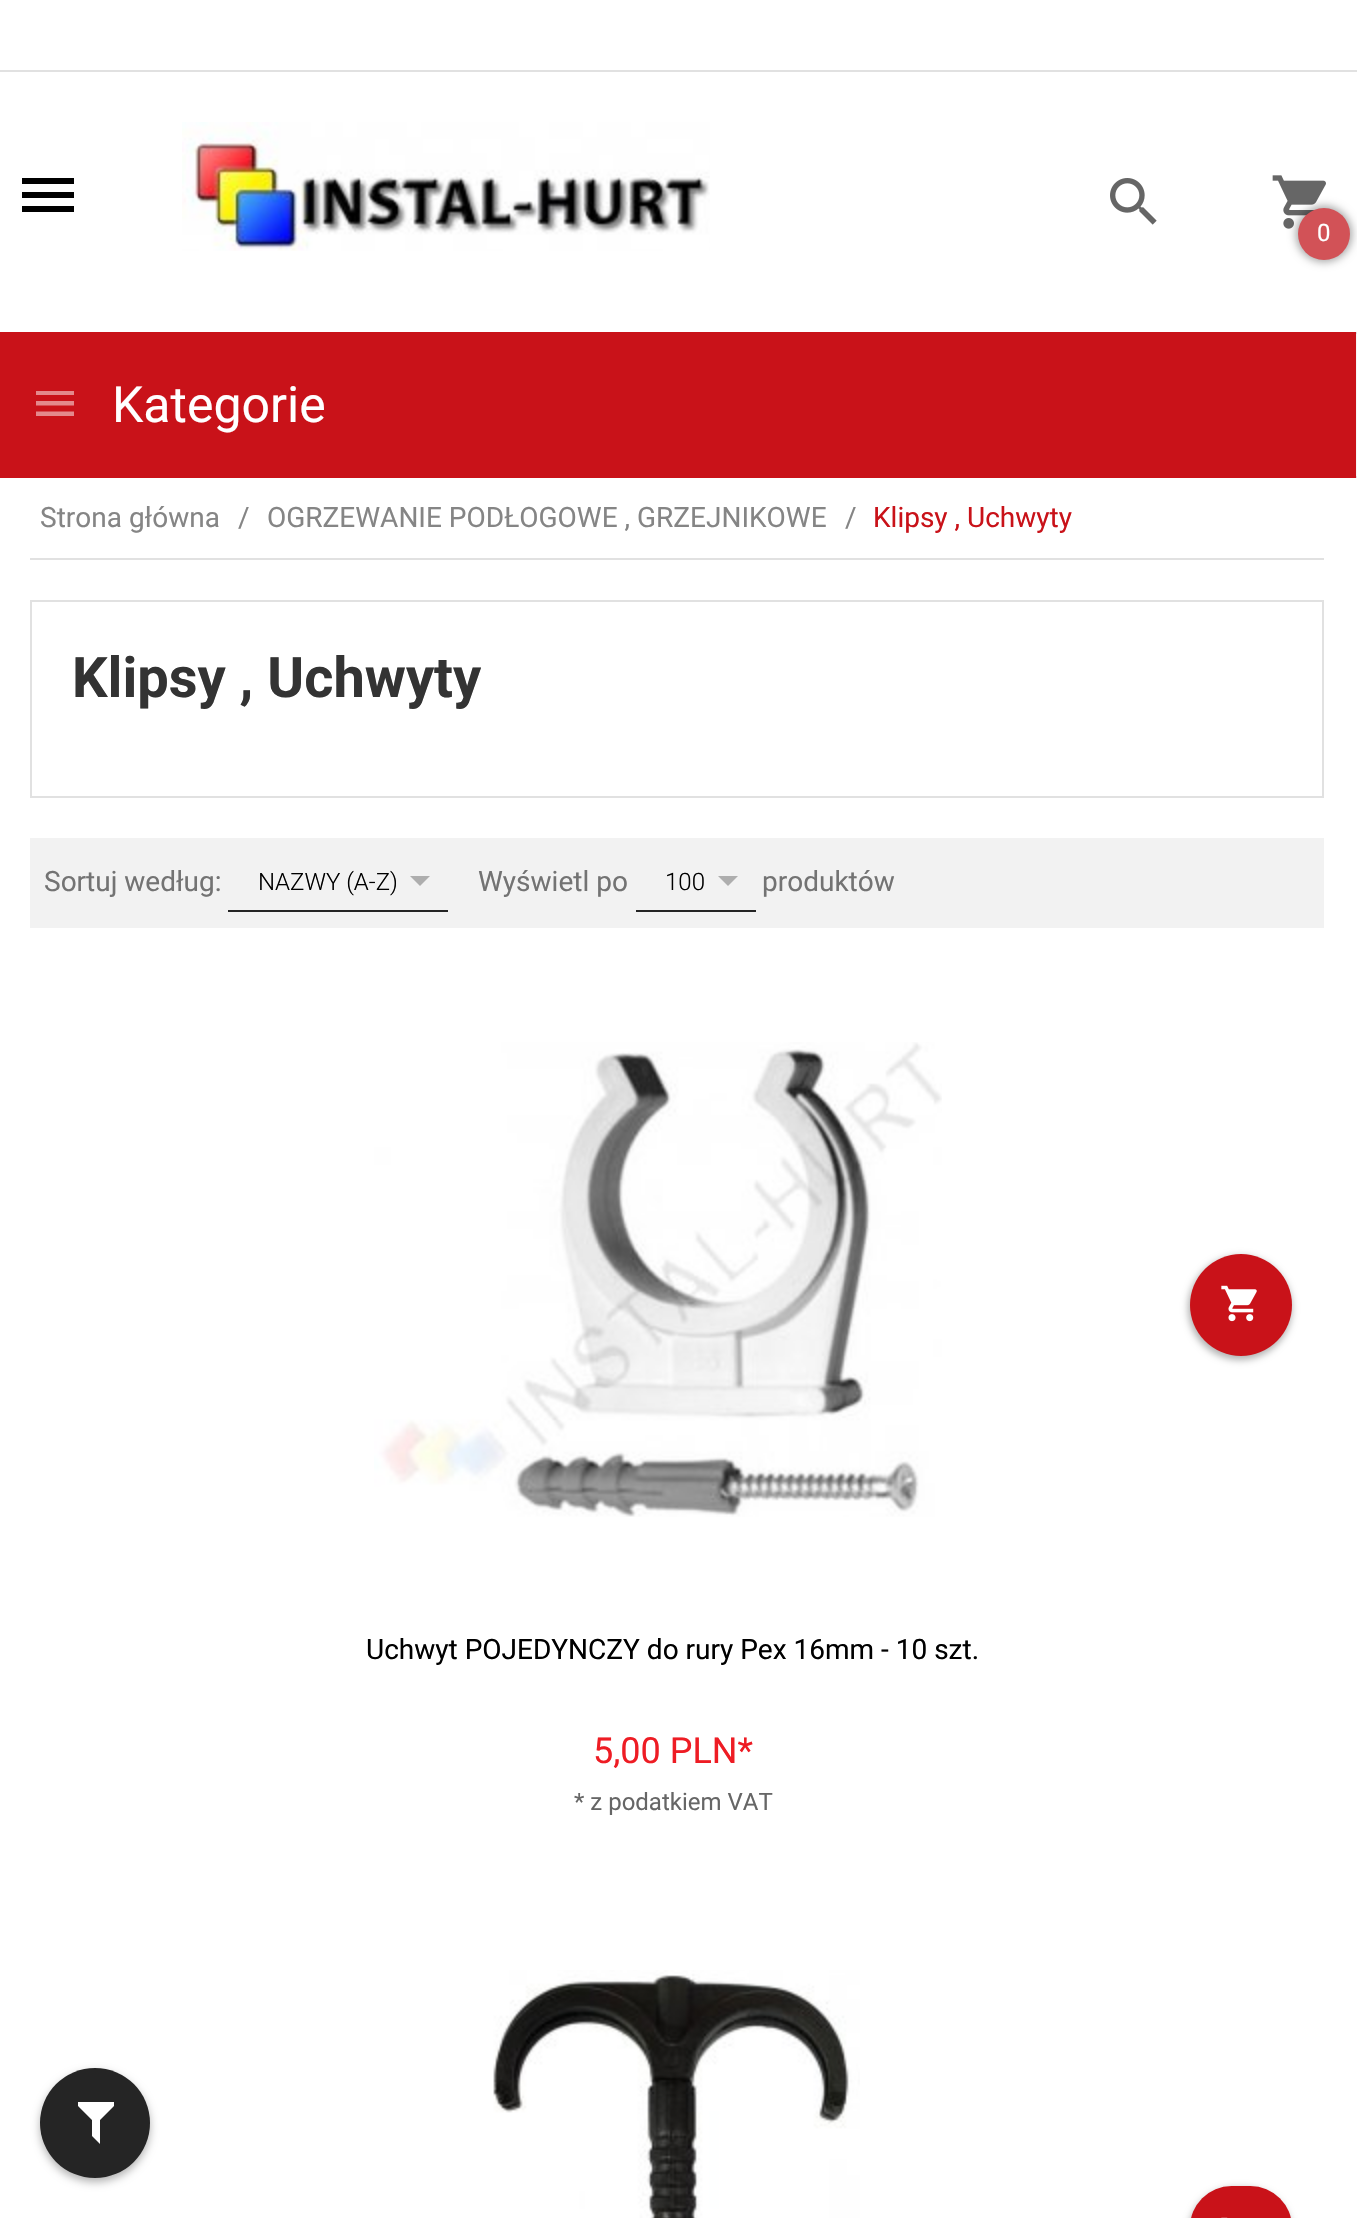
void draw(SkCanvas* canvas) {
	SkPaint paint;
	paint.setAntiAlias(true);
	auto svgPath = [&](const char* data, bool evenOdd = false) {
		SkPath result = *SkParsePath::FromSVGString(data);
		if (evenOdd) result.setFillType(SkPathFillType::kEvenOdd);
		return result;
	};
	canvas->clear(0xffffffff);
	paint.setColor(0xffe1e1e1);
	canvas->drawRect(SkRect::MakeXYWH(0, 70, 1357, 2), paint);
	paint.setColor(0xff000000);
	canvas->drawPath(svgPath("M22 178H74V184H22ZM22 192H74V198H22ZM22 206H74V212H22Z"), paint);
	canvas->drawImageRect(SkImages::DeferredFromEncodedData(SkData::MakeFromFileName("img1.png")), SkRect::MakeXYWH(182, 122, 528, 129), SkSamplingOptions());
	canvas->drawImageRect(SkImages::DeferredFromEncodedData(SkData::MakeFromFileName("img2.png")), SkRect::MakeXYWH(1110, 178, 47, 47), SkSamplingOptions());
	canvas->drawImageRect(SkImages::DeferredFromEncodedData(SkData::MakeFromFileName("img3.png")), SkRect::MakeXYWH(1272, 175, 54, 54), SkSamplingOptions());
	paint.setColor(0x5c000000);
	paint.setMaskFilter(SkMaskFilter::MakeBlur(kNormal_SkBlurStyle, 4));
	canvas->drawRoundRect(SkRect::MakeXYWH(1296, 206, 56, 56), 28, 28, paint);
	paint.setMaskFilter(nullptr);
	paint.setColor(0xffd25257);
	canvas->drawCircle(1324, 234, 26, paint);
	SkFont f1(fontMgr->matchFamilyStyle("Roboto", SkFontStyle::Normal()), 24);
	f1.setSubpixel(true);
	paint.setColor(0xffffffff);
	canvas->drawString("0", 1317, 241, f1, paint);
	paint.setColor(0xfff6f6f6);
	canvas->drawRect(SkRect::MakeXYWH(1356, 334, 1, 142), paint);
	paint.setColor(0xffe1e1e1);
	canvas->drawRect(SkRect::MakeXYWH(1356, 332, 1, 2), paint);
	canvas->drawRect(SkRect::MakeXYWH(1356, 476, 1, 2), paint);
	paint.setColor(0xffc91219);
	canvas->drawRect(SkRect::MakeXYWH(0, 332, 1356, 146), paint);
	paint.setColor(0xffe4898c);
	canvas->drawPath(svgPath("M36 391H74V395H36ZM36 401H74V405.5H36ZM36 411.5H74V416H36Z"), paint);
	SkFont f2(fontMgr->matchFamilyStyle("Roboto", SkFontStyle::Normal()), 50);
	f2.setSubpixel(true);
	paint.setColor(0xffffffff);
	canvas->drawString("Kategorie", 112, 422, f2, paint);
	paint.setColor(0xffe1e1e1);
	canvas->drawRect(SkRect::MakeXYWH(30, 558, 1294, 2), paint);
	SkFont f3(fontMgr->matchFamilyStyle("Roboto", SkFontStyle::Normal()), 28);
	f3.setSubpixel(true);
	paint.setColor(0xff858585);
	canvas->drawString("Strona główna", 40, 527, f3, paint);
	canvas->drawString("/", 238, 527, f3, paint);
	canvas->drawString("OGRZEWANIE PODŁOGOWE , GRZEJNIKOWE", 267, 527, f3, paint);
	canvas->drawString("/", 845, 527, f3, paint);
	paint.setColor(0xffc91219);
	canvas->drawString("Klipsy , Uchwyty", 873, 527, f3, paint);
	paint.setStroke(true);
	paint.setStrokeWidth(2);
	paint.setColor(0xffe1e1e1);
	canvas->drawRect(SkRect::MakeXYWH(31, 601, 1292, 196), paint);
	SkFont f4(fontMgr->matchFamilyStyle("Roboto", SkFontStyle::Bold()), 56);
	f4.setSubpixel(true);
	paint.setStroke(false);
	paint.setColor(0xff333333);
	canvas->drawString("Klipsy , Uchwyty", 72, 697, f4, paint);
	paint.setColor(0xfff2f2f2);
	canvas->drawRect(SkRect::MakeXYWH(30, 838, 1294, 90), paint);
	paint.setColor(0xff737373);
	canvas->drawString("Sortuj według:", 44, 891, f3, paint);
	paint.setColor(0xff242424);
	canvas->drawRect(SkRect::MakeXYWH(228, 910, 220, 2), paint);
	SkFont f5(fontMgr->matchFamilyStyle("Roboto", SkFontStyle(300, SkFontStyle::kNormal_Width, SkFontStyle::kUpright_Slant)), 24);
	f5.setSubpixel(true);
	paint.setColor(0xff000000);
	canvas->drawString("NAZWY (A-Z)", 258, 890, f5, paint);
	paint.setColor(0xffaeaeae);
	canvas->drawPath(svgPath("M410 876H430L420 886Z"), paint);
	paint.setColor(0xff737373);
	canvas->drawString("Wyświetl po", 478, 891, f3, paint);
	paint.setColor(0xff242424);
	canvas->drawRect(SkRect::MakeXYWH(636, 910, 120, 2), paint);
	paint.setColor(0xff000000);
	canvas->drawString("100", 665, 890, f5, paint);
	paint.setColor(0xffaeaeae);
	canvas->drawPath(svgPath("M718 876H738L728 886Z"), paint);
	paint.setColor(0xff737373);
	canvas->drawString("produktów", 762, 891, f3, paint);
	canvas->drawImageRect(SkImages::DeferredFromEncodedData(SkData::MakeFromFileName("img4.png")), SkRect::MakeXYWH(374, 1042, 568, 475), SkSamplingOptions());
	paint.setColor(0x4d000000);
	paint.setMaskFilter(SkMaskFilter::MakeBlur(kNormal_SkBlurStyle, 3.5));
	canvas->drawRoundRect(SkRect::MakeXYWH(1188, 1256, 104, 104), 52, 52, paint);
	paint.setMaskFilter(nullptr);
	paint.setColor(0xffc91219);
	canvas->drawCircle(1241, 1305, 51, paint);
	canvas->drawImageRect(SkImages::DeferredFromEncodedData(SkData::MakeFromFileName("img5.png")), SkRect::MakeXYWH(1221, 1285, 36, 37), SkSamplingOptions());
	paint.setColor(0xff000000);
	canvas->drawString("Uchwyt POJEDYNCZY do rury Pex 16mm - 10 szt.", 366, 1659, f3, paint);
	SkFont f6(fontMgr->matchFamilyStyle("Roboto", SkFontStyle::Normal()), 36);
	f6.setSubpixel(true);
	paint.setColor(0xffee1c24);
	canvas->drawString("5,00 PLN*", 593, 1763, f6, paint);
	paint.setColor(0xff666666);
	canvas->drawString("* z podatkiem VAT", 574, 1810, f1, paint);
	canvas->drawImageRect(SkImages::DeferredFromEncodedData(SkData::MakeFromFileName("img6.png")), SkRect::MakeXYWH(493, 1970, 367, 248), SkSamplingOptions());
	paint.setColor(0x4d000000);
	paint.setMaskFilter(SkMaskFilter::MakeBlur(kNormal_SkBlurStyle, 3.5));
	canvas->drawRoundRect(SkRect::MakeXYWH(1188, 2188, 104, 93), 52, 52, paint);
	paint.setMaskFilter(nullptr);
	paint.setColor(0xffc91219);
	canvas->drawRoundRect(SkRect::MakeXYWH(1190, 2186, 102, 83), 51, 51, paint);
	canvas->drawImageRect(SkImages::DeferredFromEncodedData(SkData::MakeFromFileName("img7.png")), SkRect::MakeXYWH(1221, 2217, 7, 1), SkSamplingOptions());
	paint.setColor(0x4d000000);
	paint.setMaskFilter(SkMaskFilter::MakeBlur(kNormal_SkBlurStyle, 4));
	canvas->drawRoundRect(SkRect::MakeXYWH(40, 2072, 110, 110), 55, 55, paint);
	paint.setMaskFilter(nullptr);
	paint.setColor(0xff252525);
	canvas->drawCircle(95, 2123, 55, paint);
	paint.setColor(0xffffffff);
	canvas->drawPath(svgPath("M78 2102H114V2106L100 2120V2144L92 2136V2120L78 2106Z"), paint);
}
